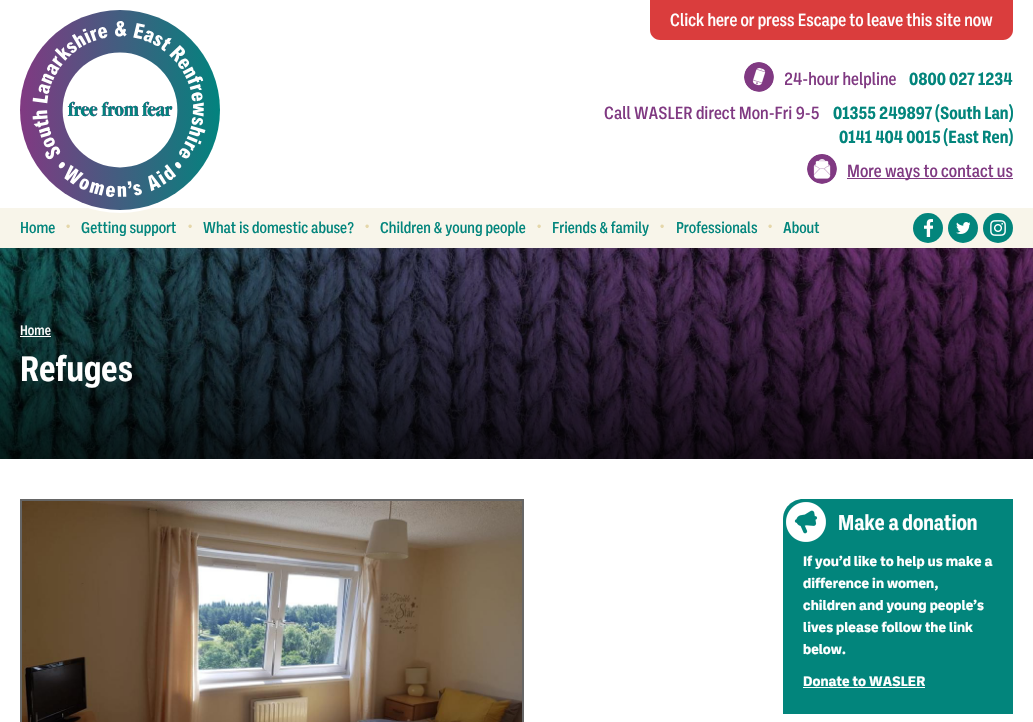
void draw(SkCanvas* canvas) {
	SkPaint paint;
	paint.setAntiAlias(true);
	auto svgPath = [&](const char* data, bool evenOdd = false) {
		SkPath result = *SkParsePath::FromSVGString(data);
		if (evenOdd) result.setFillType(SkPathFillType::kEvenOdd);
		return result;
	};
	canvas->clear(0xffffffff);
	paint.setColor(0xffda3d3d);
	canvas->drawPath(svgPath("M650 0H1013V30C1013 35.5 1008.5 40 1003 40H660C654.5 40 650 35.5 650 30Z"), paint);
	SkFont f1(fontMgr->matchFamilyStyle("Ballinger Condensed", SkFontStyle(500, SkFontStyle::kNormal_Width, SkFontStyle::kUpright_Slant)), 18);
	f1.setSubpixel(true);
	paint.setColor(0xffffffff);
	canvas->drawString("Click here or press Escape to leave this site now", 670, 26, f1, paint);
	paint.setColor(0xfff8f5ea);
	canvas->drawRect(SkRect::MakeXYWH(0, 208, 1033, 40), paint);
	paint.setColor(0xffffffff);
	canvas->drawCircle(120, 110, 103, paint);
	canvas->drawImageRect(SkImages::DeferredFromEncodedData(SkData::MakeFromFileName("img1.png")), SkRect::MakeXYWH(20, 10, 200, 200), SkSamplingOptions());
	canvas->drawImageRect(SkImages::DeferredFromEncodedData(SkData::MakeFromFileName("img2.png")), SkRect::MakeXYWH(744, 62, 30, 30), SkSamplingOptions());
	paint.setColor(0xff803982);
	canvas->drawString("24-hour helpline", 784, 85, f1, paint);
	SkFont f2(fontMgr->matchFamilyStyle("Ballinger Condensed", SkFontStyle::Bold()), 18);
	f2.setSubpixel(true);
	paint.setColor(0xff02857c);
	canvas->drawString("0800 027 1234", 909, 85, f2, paint);
	paint.setColor(0xff803982);
	canvas->drawString("Call WASLER direct Mon-Fri 9-5", 604, 119, f1, paint);
	paint.setColor(0xff02857c);
	canvas->drawString("01355 249897 (South Lan)", 833, 119, f2, paint);
	canvas->drawString("0141 404 0015 (East Ren)", 839, 143, f2, paint);
	canvas->drawImageRect(SkImages::DeferredFromEncodedData(SkData::MakeFromFileName("img3.png")), SkRect::MakeXYWH(807, 154, 30, 30), SkSamplingOptions());
	paint.setColor(0xff803982);
	canvas->drawRect(SkRect::MakeXYWH(847, 178, 166, 1), paint);
	canvas->drawString("More ways to contact us", 847, 177, f1, paint);
	SkFont f3(fontMgr->matchFamilyStyle("Ballinger Condensed", SkFontStyle(500, SkFontStyle::kNormal_Width, SkFontStyle::kUpright_Slant)), 16);
	f3.setSubpixel(true);
	paint.setColor(0xff02857c);
	canvas->drawString("Home", 20, 233, f3, paint);
	SkFont f4(fontMgr->matchFamilyStyle("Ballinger", SkFontStyle::Normal()), 16);
	f4.setSubpixel(true);
	paint.setColor(0xffe5d7aa);
	canvas->drawString("•", 65, 232, f4, paint);
	paint.setColor(0xff02857c);
	canvas->drawString("Getting support", 81, 233, f3, paint);
	paint.setColor(0xffe5d7aa);
	canvas->drawString("•", 187, 232, f4, paint);
	paint.setColor(0xff02857c);
	canvas->drawString("What is domestic abuse?", 203, 233, f3, paint);
	paint.setColor(0xffe5d7aa);
	canvas->drawString("•", 364, 232, f4, paint);
	paint.setColor(0xff02857c);
	canvas->drawString("Children & young people", 380, 233, f3, paint);
	paint.setColor(0xffe5d7aa);
	canvas->drawString("•", 536, 232, f4, paint);
	paint.setColor(0xff02857c);
	canvas->drawString("Friends & family", 552, 233, f3, paint);
	paint.setColor(0xffe5d7aa);
	canvas->drawString("•", 659, 232, f4, paint);
	paint.setColor(0xff02857c);
	canvas->drawString("Professionals", 676, 233, f3, paint);
	paint.setColor(0xffe5d7aa);
	canvas->drawString("•", 767, 232, f4, paint);
	paint.setColor(0xff02857c);
	canvas->drawString("About", 783, 233, f3, paint);
	canvas->drawCircle(928, 228, 15, paint);
	canvas->drawImageRect(SkImages::DeferredFromEncodedData(SkData::MakeFromFileName("img4.png")), SkRect::MakeXYWH(924, 219, 9, 18), SkSamplingOptions());
	canvas->drawCircle(963, 228, 15, paint);
	canvas->drawImageRect(SkImages::DeferredFromEncodedData(SkData::MakeFromFileName("img5.png")), SkRect::MakeXYWH(956, 222, 14, 12), SkSamplingOptions());
	canvas->drawCircle(998, 228, 15, paint);
	canvas->drawImageRect(SkImages::DeferredFromEncodedData(SkData::MakeFromFileName("img6.png")), SkRect::MakeXYWH(990, 220, 16, 16), SkSamplingOptions());
	canvas->drawImageRect(SkImages::DeferredFromEncodedData(SkData::MakeFromFileName("img7.png")), SkRect::MakeXYWH(0, 248, 1033, 211), SkSamplingOptions());
	SkFont f5(fontMgr->matchFamilyStyle("Ballinger Condensed", SkFontStyle(500, SkFontStyle::kNormal_Width, SkFontStyle::kUpright_Slant)), 14);
	f5.setSubpixel(true);
	paint.setColor(0xffffffff);
	canvas->drawString("Home", 20, 335, f5, paint);
	canvas->drawRect(SkRect::MakeXYWH(20, 336, 31, 1), paint);
	SkFont f6(fontMgr->matchFamilyStyle("Ballinger Condensed", SkFontStyle::Bold()), 36);
	f6.setSubpixel(true);
	canvas->drawString("Refuges", 20, 381, f6, paint);
	paint.setStroke(true);
	paint.setStrokeWidth(2);
	paint.setColor(0xff666666);
	canvas->drawRect(SkRect::MakeXYWH(21, 500, 502, 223), paint);
	canvas->drawImageRect(SkImages::DeferredFromEncodedData(SkData::MakeFromFileName("img8.png")), SkRect::MakeXYWH(22, 501, 500, 221), SkSamplingOptions());
	paint.setStroke(false);
	paint.setColor(0xff02857c);
	canvas->drawPath(svgPath("M803 499H1013V714H783V519C783 508 792 499 803 499Z"), paint);
	canvas->drawImageRect(SkImages::DeferredFromEncodedData(SkData::MakeFromFileName("img9.png")), SkRect::MakeXYWH(786, 502, 40, 40), SkSamplingOptions());
	SkFont f7(fontMgr->matchFamilyStyle("Ballinger Condensed", SkFontStyle::Bold()), 22);
	f7.setSubpixel(true);
	paint.setColor(0xffffffff);
	canvas->drawString("Make a donation", 838, 530, f7, paint);
	SkFont f8(fontMgr->matchFamilyStyle("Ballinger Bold", SkFontStyle::Bold()), 14);
	f8.setSubpixel(true);
	canvas->drawString("If you’d like to help us make a", 803, 566, f8, paint);
	canvas->drawString("difference in women,", 803, 588, f8, paint);
	canvas->drawString("children and young people’s", 803, 610, f8, paint);
	canvas->drawString("lives please follow the link", 803, 632, f8, paint);
	canvas->drawString("below.", 803, 654, f8, paint);
	canvas->drawString("Donate to WASLER", 803, 686, f8, paint);
	canvas->drawRect(SkRect::MakeXYWH(803, 687, 122, 1), paint);
}
